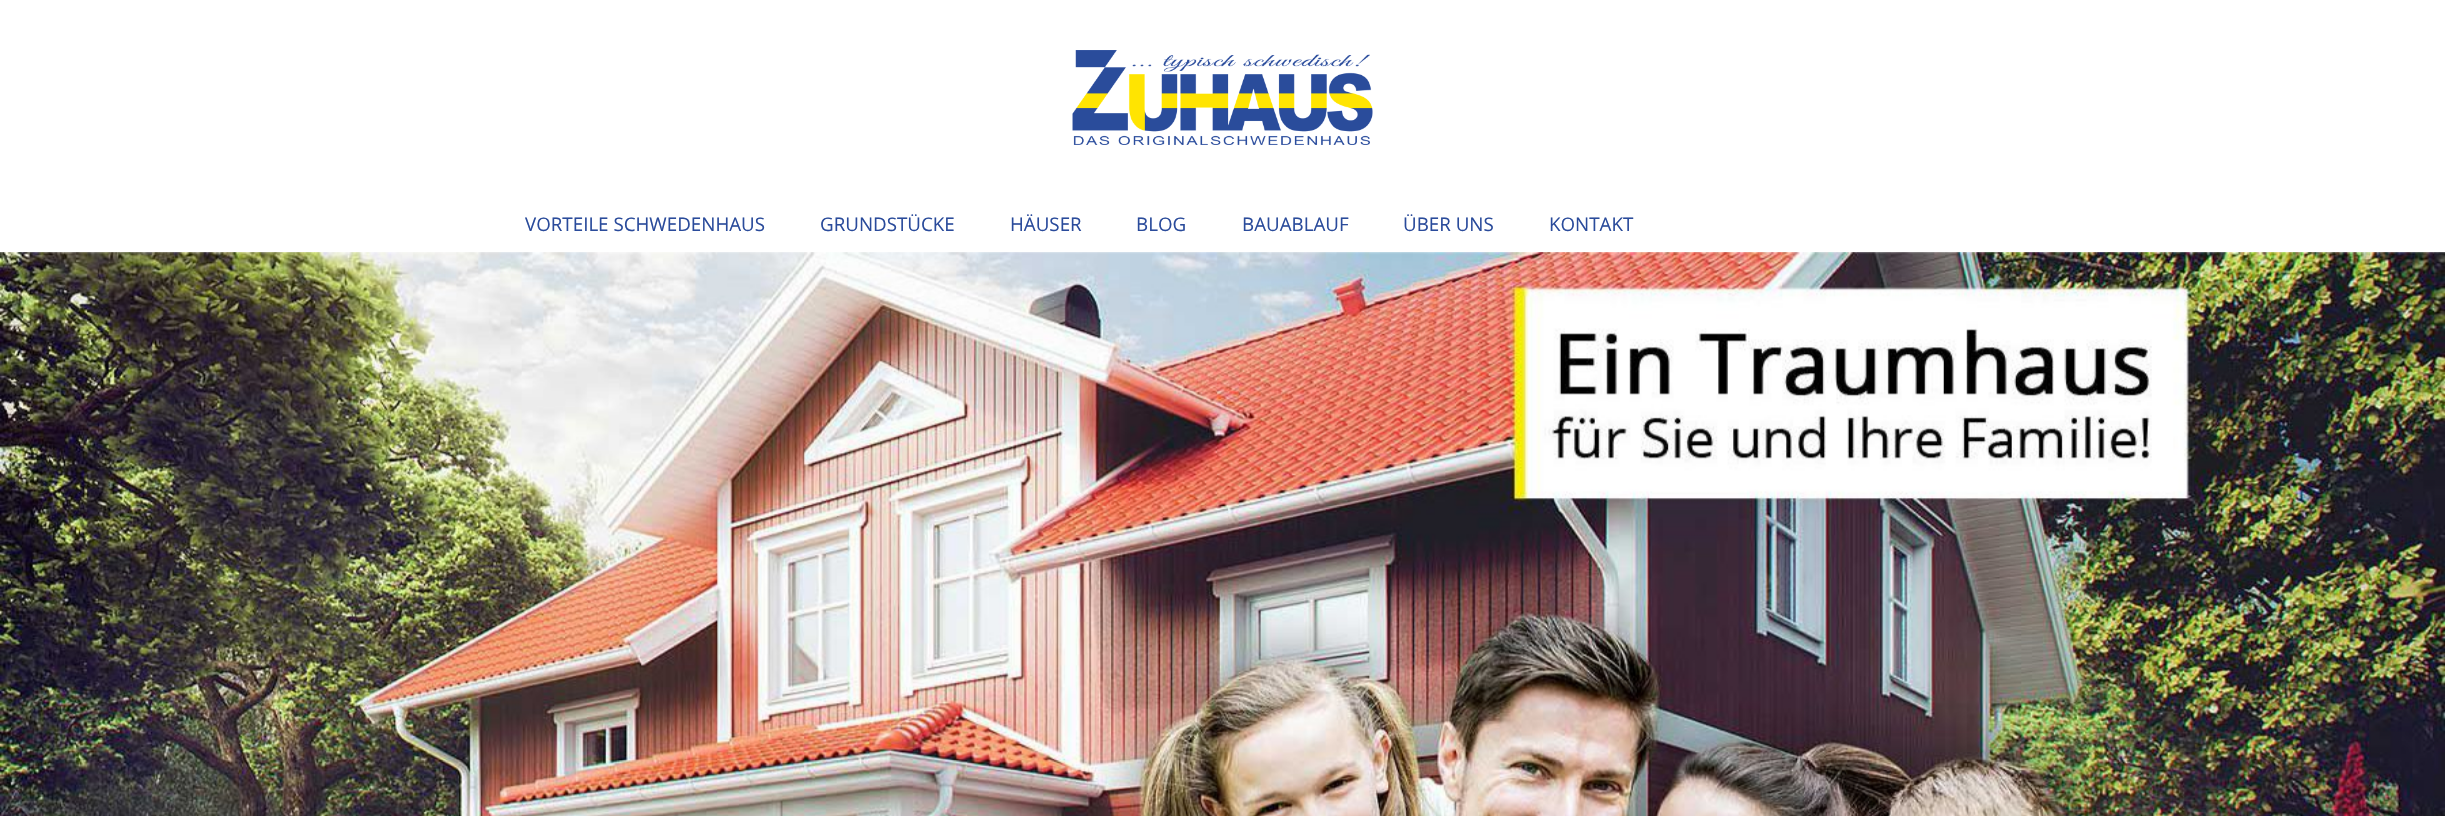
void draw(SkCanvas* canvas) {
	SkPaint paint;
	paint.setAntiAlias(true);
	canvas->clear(0xffffffff);
	canvas->drawImageRect(SkImages::DeferredFromEncodedData(SkData::MakeFromFileName("img1.png")), SkRect::MakeXYWH(1072, 50, 301, 95), SkSamplingOptions());
	SkFont f1(fontMgr->matchFamilyStyle("Open Sans", SkFontStyle::Normal()), 18.75);
	f1.setSubpixel(true);
	paint.setColor(0xff2a4b9b);
	canvas->drawString("VORTEILE SCHWEDENHAUS", 525, 231, f1, paint);
	canvas->drawString("GRUNDSTÜCKE", 820, 231, f1, paint);
	canvas->drawString("HÄUSER", 1010, 231, f1, paint);
	canvas->drawString("BLOG", 1136, 231, f1, paint);
	canvas->drawString("BAUABLAUF", 1242, 231, f1, paint);
	canvas->drawString("ÜBER UNS", 1403, 231, f1, paint);
	canvas->drawString("KONTAKT", 1549, 231, f1, paint);
	canvas->drawImageRect(SkImages::DeferredFromEncodedData(SkData::MakeFromFileName("img2.png")), SkRect::MakeXYWH(0, 252, 2445, 564), SkSamplingOptions());
}
